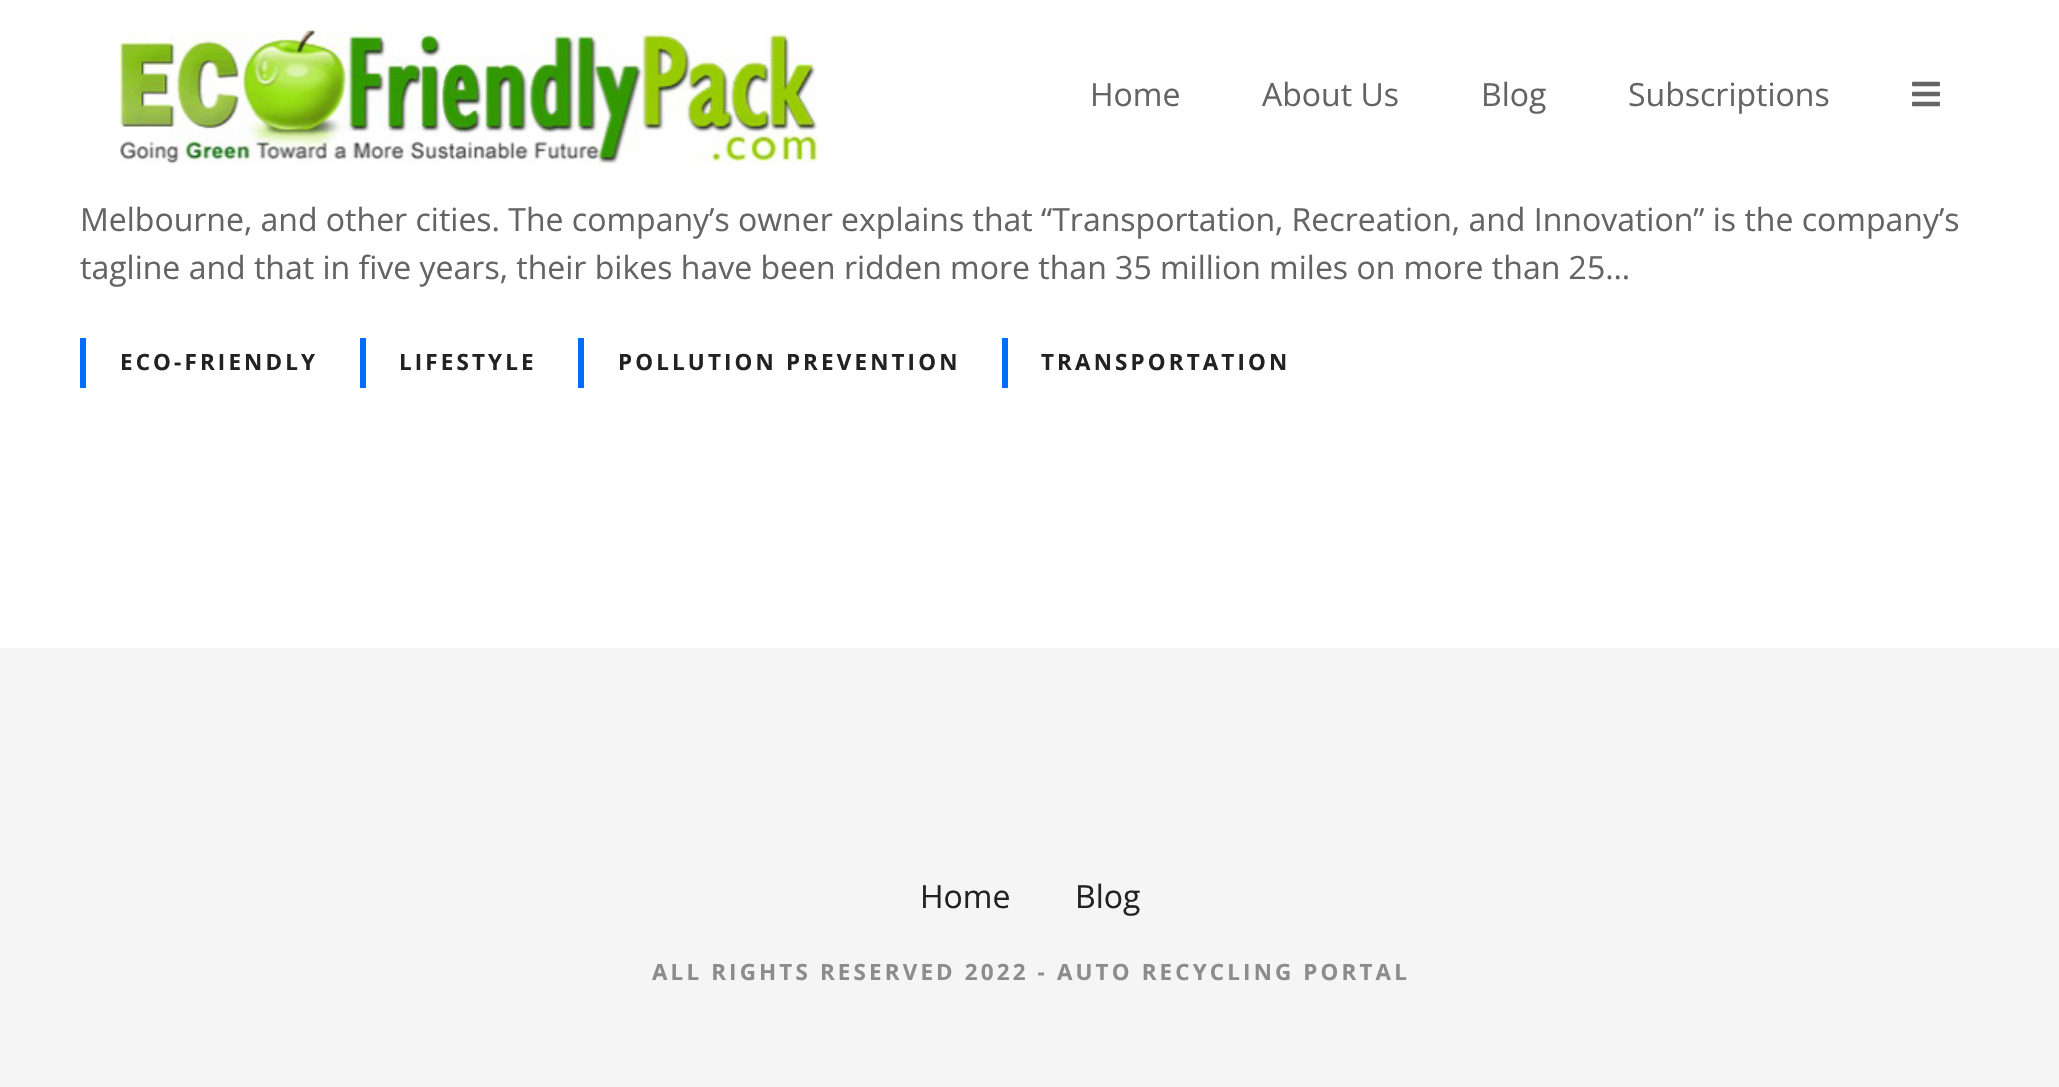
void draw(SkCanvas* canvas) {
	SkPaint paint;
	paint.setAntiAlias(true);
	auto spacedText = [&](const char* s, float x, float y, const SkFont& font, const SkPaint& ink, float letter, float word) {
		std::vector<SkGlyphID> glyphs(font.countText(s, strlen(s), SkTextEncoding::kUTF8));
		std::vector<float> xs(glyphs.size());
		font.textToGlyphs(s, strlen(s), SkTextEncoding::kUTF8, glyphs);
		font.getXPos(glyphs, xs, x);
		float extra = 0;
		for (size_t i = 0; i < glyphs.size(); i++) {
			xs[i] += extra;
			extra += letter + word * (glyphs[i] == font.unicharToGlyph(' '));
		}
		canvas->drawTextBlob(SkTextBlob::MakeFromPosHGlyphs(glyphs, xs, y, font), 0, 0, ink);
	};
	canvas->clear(0xffffffff);
	canvas->drawImageRect(SkImages::DeferredFromEncodedData(SkData::MakeFromFileName("img1.png")), SkRect::MakeXYWH(120, 30, 698, 134), SkSamplingOptions());
	SkFont f1(fontMgr->matchFamilyStyle("Open Sans", SkFontStyle::Normal()), 32);
	f1.setSubpixel(true);
	paint.setColor(0xff646464);
	canvas->drawString("Home", 1090, 106, f1, paint);
	canvas->drawString("About Us", 1262, 106, f1, paint);
	canvas->drawString("Blog", 1481, 106, f1, paint);
	canvas->drawString("Subscriptions", 1628, 106, f1, paint);
	canvas->drawImageRect(SkImages::DeferredFromEncodedData(SkData::MakeFromFileName("img2.png")), SkRect::MakeXYWH(1912, 81, 28, 26), SkSamplingOptions());
	canvas->drawString("Melbourne, and other cities. The company’s owner explains that “Transportation, Recreation, and Innovation” is the company’s", 80, 231, f1, paint);
	canvas->drawString("tagline and that in five years, their bikes have been ridden more than 35 million miles on more than 25…", 80, 279, f1, paint);
	paint.setColor(0xff016dff);
	canvas->drawRect(SkRect::MakeXYWH(80, 338, 6, 50), paint);
	SkFont f2(fontMgr->matchFamilyStyle("Open Sans", SkFontStyle::Bold()), 22.4);
	f2.setSubpixel(true);
	paint.setColor(0xff222222);
	spacedText("ECO-FRIENDLY", 120, 370, f2, paint, 3.15, 0);
	paint.setColor(0xff016dff);
	canvas->drawRect(SkRect::MakeXYWH(360, 338, 6, 50), paint);
	paint.setColor(0xff222222);
	spacedText("LIFESTYLE", 399, 370, f2, paint, 3.15, 0);
	paint.setColor(0xff016dff);
	canvas->drawRect(SkRect::MakeXYWH(578, 338, 6, 50), paint);
	paint.setColor(0xff222222);
	spacedText("POLLUTION PREVENTION", 618, 370, f2, paint, 3.15, 0);
	paint.setColor(0xff016dff);
	canvas->drawRect(SkRect::MakeXYWH(1002, 338, 6, 50), paint);
	paint.setColor(0xff222222);
	spacedText("TRANSPORTATION", 1041, 370, f2, paint, 3.15, 0);
	paint.setColor(0xfff5f5f5);
	canvas->drawRect(SkRect::MakeXYWH(0, 648, 2059, 439), paint);
	paint.setColor(0xff222222);
	canvas->drawString("Home", 920, 908, f1, paint);
	canvas->drawString("Blog", 1075, 908, f1, paint);
	paint.setColor(0xff8c8c8c);
	spacedText("ALL RIGHTS RESERVED 2022 - AUTO RECYCLING PORTAL", 652, 980, f2, paint, 3.15, 0);
}
